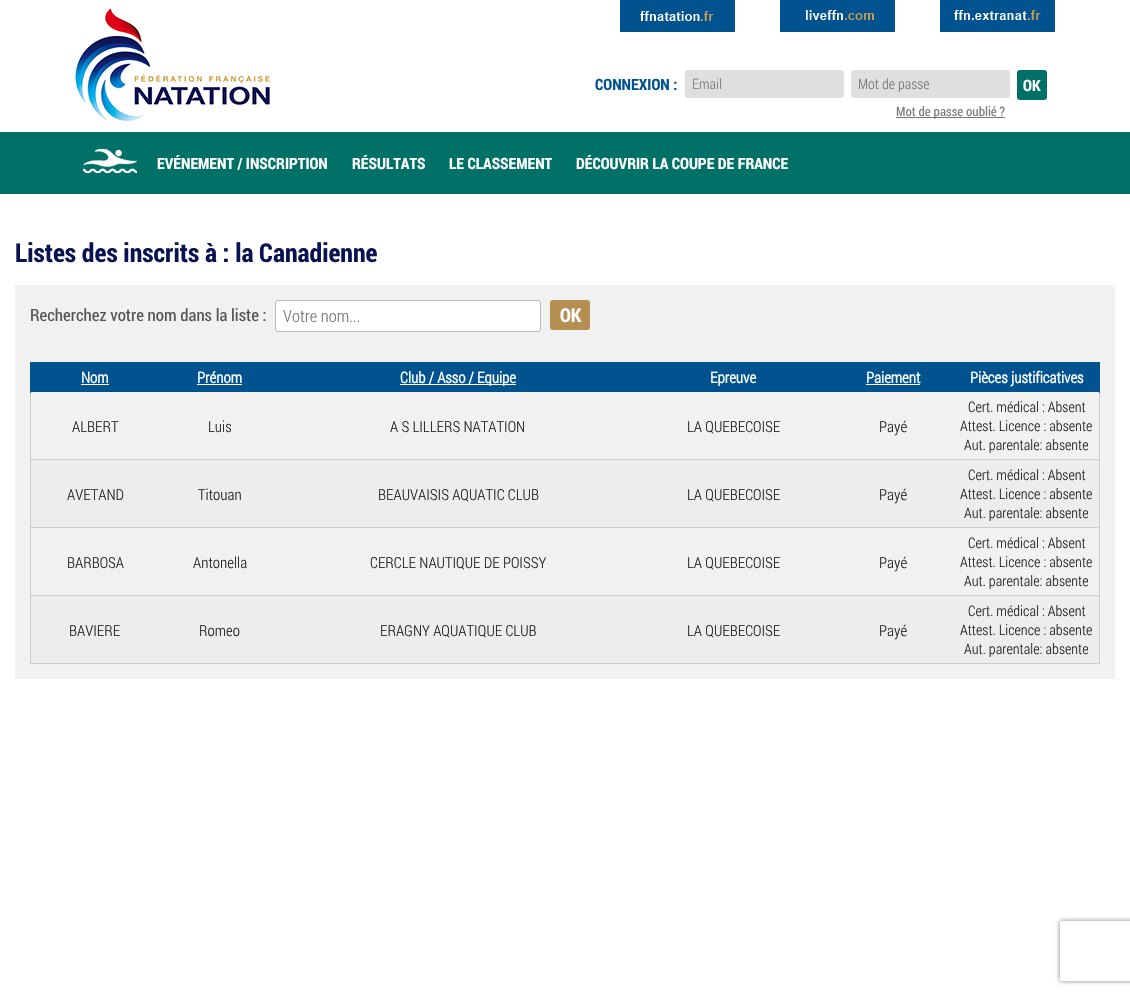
void draw(SkCanvas* canvas) {
	SkPaint paint;
	paint.setAntiAlias(true);
	auto svgPath = [&](const char* data, bool evenOdd = false) {
		SkPath result = *SkParsePath::FromSVGString(data);
		if (evenOdd) result.setFillType(SkPathFillType::kEvenOdd);
		return result;
	};
	canvas->clear(0xffffffff);
	paint.setColor(0xff017067);
	canvas->drawRect(SkRect::MakeXYWH(0, 132, 1130, 62), paint);
	canvas->drawImageRect(SkImages::DeferredFromEncodedData(SkData::MakeFromFileName("img1.png")), SkRect::MakeXYWH(75, 8, 195, 113), SkSamplingOptions());
	canvas->drawImageRect(SkImages::DeferredFromEncodedData(SkData::MakeFromFileName("img2.png")), SkRect::MakeXYWH(620, 0, 115, 32), SkSamplingOptions());
	canvas->drawImageRect(SkImages::DeferredFromEncodedData(SkData::MakeFromFileName("img3.png")), SkRect::MakeXYWH(780, 0, 115, 32), SkSamplingOptions());
	canvas->drawImageRect(SkImages::DeferredFromEncodedData(SkData::MakeFromFileName("img4.png")), SkRect::MakeXYWH(940, 0, 115, 32), SkSamplingOptions());
	SkFont f1(fontMgr->matchFamilyStyle("Roboto Condensed", SkFontStyle::Bold()), 15.6);
	f1.setSubpixel(true);
	paint.setColor(0xff00538f);
	canvas->drawString("CONNEXION :", 595, 90, f1, paint);
	paint.setColor(0xffdfdfdf);
	canvas->drawRoundRect(SkRect::MakeXYWH(685, 70, 159, 28), 3, 3, paint);
	SkFont f2(fontMgr->matchFamilyStyle("Roboto Condensed", SkFontStyle(300, SkFontStyle::kNormal_Width, SkFontStyle::kUpright_Slant)), 14.25);
	f2.setSubpixel(true);
	paint.setColor(0xff7c7c7c);
	canvas->drawString("Email", 692, 89, f2, paint);
	paint.setColor(0xffdfdfdf);
	canvas->drawRoundRect(SkRect::MakeXYWH(851, 70, 159, 28), 3, 3, paint);
	paint.setColor(0xff757575);
	canvas->drawString("Mot de passe", 858, 89, f2, paint);
	paint.setColor(0xff017067);
	canvas->drawRoundRect(SkRect::MakeXYWH(1017, 70, 30, 30), 3, 3, paint);
	paint.setColor(0xffffffff);
	canvas->drawString("OK", 1023, 91, f1, paint);
	paint.setColor(0xff777777);
	canvas->drawRect(SkRect::MakeXYWH(896, 117, 109, 1), paint);
	SkFont f3(fontMgr->matchFamilyStyle("Roboto Condensed", SkFontStyle::Normal()), 13);
	f3.setSubpixel(true);
	paint.setColor(0xff7c7c7c);
	canvas->drawString("Mot de passe oublié ?", 896, 116, f3, paint);
	canvas->save();
	canvas->clipPath(svgPath("M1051 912H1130V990H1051ZM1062 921H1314C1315 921 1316 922 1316 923V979C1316 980 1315 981 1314 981H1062C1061 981 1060 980 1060 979V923C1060 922 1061 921 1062 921Z", true), true);
	paint.setColor(0xff808080);
	paint.setMaskFilter(SkMaskFilter::MakeBlur(kNormal_SkBlurStyle, 2.5));
	canvas->drawRoundRect(SkRect::MakeXYWH(1060, 921, 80, 60), 2, 2, paint);
	paint.setMaskFilter(nullptr);
	canvas->restore();
	canvas->drawImageRect(SkImages::DeferredFromEncodedData(SkData::MakeFromFileName("img5.png")), SkRect::MakeXYWH(83, 149, 54, 24), SkSamplingOptions());
	paint.setColor(0xffffffff);
	canvas->drawString("EVÉNEMENT / INSCRIPTION", 157, 169, f1, paint);
	canvas->drawString("RÉSULTATS", 352, 169, f1, paint);
	canvas->drawString("LE CLASSEMENT", 449, 169, f1, paint);
	canvas->drawString("DÉCOUVRIR LA COUPE DE FRANCE", 576, 169, f1, paint);
	SkFont f4(fontMgr->matchFamilyStyle("Roboto Condensed", SkFontStyle::Bold()), 26);
	f4.setSubpixel(true);
	paint.setColor(0xff0a1352);
	canvas->drawString("Listes des inscrits à : la Canadienne", 15, 262, f4, paint);
	paint.setColor(0xfff1f1f1);
	canvas->drawRect(SkRect::MakeXYWH(15, 285, 1100, 394), paint);
	SkFont f5(fontMgr->matchFamilyStyle("Roboto Condensed", SkFontStyle::Normal()), 16.9);
	f5.setSubpixel(true);
	paint.setColor(0xff555555);
	canvas->drawString("Recherchez votre nom dans la liste :", 30, 321, f5, paint);
	paint.setColor(0xffffffff);
	canvas->drawRoundRect(SkRect::MakeXYWH(275.5, 300.5, 265, 31), 2.5, 2.5, paint);
	paint.setStroke(true);
	paint.setStrokeWidth(1);
	paint.setColor(0xffb9b9b9);
	canvas->drawRoundRect(SkRect::MakeXYWH(275.5, 300.5, 265, 31), 2.5, 2.5, paint);
	SkFont f6(fontMgr->matchFamilyStyle("Roboto Condensed", SkFontStyle(300, SkFontStyle::kNormal_Width, SkFontStyle::kUpright_Slant)), 16.9);
	f6.setSubpixel(true);
	paint.setStroke(false);
	paint.setColor(0xff757575);
	canvas->drawString("Votre nom...", 283, 322, f6, paint);
	paint.setColor(0xffb58f51);
	canvas->drawRoundRect(SkRect::MakeXYWH(550, 300, 40, 30), 3, 3, paint);
	SkFont f7(fontMgr->matchFamilyStyle("Roboto Condensed", SkFontStyle::Bold()), 19);
	f7.setSubpixel(true);
	paint.setColor(0xffffffff);
	canvas->drawString("OK", 560, 322, f7, paint);
	paint.setColor(0xff00538f);
	canvas->drawRect(SkRect::MakeXYWH(31, 362, 1068, 30), paint);
	paint.setColor(0xffcccccc);
	canvas->drawRect(SkRect::MakeXYWH(1099, 392, 1, 272), paint);
	paint.setColor(0xff00538f);
	canvas->drawRect(SkRect::MakeXYWH(1099, 362, 1, 31), paint);
	paint.setColor(0xffcccccc);
	canvas->drawRect(SkRect::MakeXYWH(30, 392, 1, 272), paint);
	paint.setColor(0xff00538f);
	canvas->drawRect(SkRect::MakeXYWH(30, 362, 1, 31), paint);
	SkFont f8(fontMgr->matchFamilyStyle("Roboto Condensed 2", SkFontStyle::Bold()), 15.25);
	f8.setSubpixel(true);
	paint.setColor(0xffffffff);
	canvas->drawString("Nom", 81, 383, f8, paint);
	canvas->drawRect(SkRect::MakeXYWH(81, 384, 28, 1), paint);
	canvas->drawString("Prénom", 197, 383, f8, paint);
	canvas->drawRect(SkRect::MakeXYWH(197, 384, 45, 1), paint);
	canvas->drawRect(SkRect::MakeXYWH(400, 384, 116, 1), paint);
	canvas->drawString("Club / Asso / Equipe", 400, 383, f8, paint);
	canvas->drawString("Epreuve", 710, 383, f8, paint);
	canvas->drawString("Paiement", 866, 383, f8, paint);
	canvas->drawRect(SkRect::MakeXYWH(866, 384, 54, 1), paint);
	canvas->drawString("Pièces justificatives", 970, 383, f8, paint);
	SkFont f9(fontMgr->matchFamilyStyle("Roboto Condensed", SkFontStyle(300, SkFontStyle::kNormal_Width, SkFontStyle::kUpright_Slant)), 15.25);
	f9.setSubpixel(true);
	paint.setColor(0xff222222);
	canvas->drawString("ALBERT", 72, 432, f9, paint);
	canvas->drawString("Luis", 208, 432, f9, paint);
	canvas->drawString("A S LILLERS NATATION", 390, 432, f9, paint);
	canvas->drawString("LA QUEBECOISE", 687, 432, f9, paint);
	canvas->drawString("Payé", 879, 432, f9, paint);
	paint.setColor(0xffcccccc);
	canvas->drawRect(SkRect::MakeXYWH(30, 459, 1070, 1), paint);
	SkFont f10(fontMgr->matchFamilyStyle("Roboto Condensed", SkFontStyle(300, SkFontStyle::kNormal_Width, SkFontStyle::kUpright_Slant)), 14.4);
	f10.setSubpixel(true);
	paint.setColor(0xff222222);
	canvas->drawString("Cert. médical : Absent", 968, 412, f10, paint);
	canvas->drawString("Attest. Licence : absente", 960, 431, f10, paint);
	canvas->drawString("Aut. parentale: absente", 964, 450, f10, paint);
	paint.setColor(0xffededed);
	canvas->drawRect(SkRect::MakeXYWH(31, 460, 1068, 67), paint);
	paint.setColor(0xff222222);
	canvas->drawString("AVETAND", 67, 500, f9, paint);
	canvas->drawString("Titouan", 198, 500, f9, paint);
	canvas->drawString("BEAUVAISIS AQUATIC CLUB", 378, 500, f9, paint);
	canvas->drawString("LA QUEBECOISE", 687, 500, f9, paint);
	canvas->drawString("Payé", 879, 500, f9, paint);
	paint.setColor(0xffcccccc);
	canvas->drawRect(SkRect::MakeXYWH(30, 527, 1070, 1), paint);
	paint.setColor(0xff222222);
	canvas->drawString("Cert. médical : Absent", 968, 480, f10, paint);
	canvas->drawString("Attest. Licence : absente", 960, 499, f10, paint);
	canvas->drawString("Aut. parentale: absente", 964, 518, f10, paint);
	canvas->drawString("BARBOSA", 67, 568, f9, paint);
	canvas->drawString("Antonella", 193, 568, f9, paint);
	canvas->drawString("CERCLE NAUTIQUE DE POISSY", 370, 568, f9, paint);
	canvas->drawString("LA QUEBECOISE", 687, 568, f9, paint);
	canvas->drawString("Payé", 879, 568, f9, paint);
	paint.setColor(0xffcccccc);
	canvas->drawRect(SkRect::MakeXYWH(30, 595, 1070, 1), paint);
	paint.setColor(0xff222222);
	canvas->drawString("Cert. médical : Absent", 968, 548, f10, paint);
	canvas->drawString("Attest. Licence : absente", 960, 567, f10, paint);
	canvas->drawString("Aut. parentale: absente", 964, 586, f10, paint);
	paint.setColor(0xffededed);
	canvas->drawRect(SkRect::MakeXYWH(31, 596, 1068, 67), paint);
	paint.setColor(0xff222222);
	canvas->drawString("BAVIERE", 69, 636, f9, paint);
	canvas->drawString("Romeo", 199, 636, f9, paint);
	canvas->drawString("ERAGNY AQUATIQUE CLUB", 380, 636, f9, paint);
	canvas->drawString("LA QUEBECOISE", 687, 636, f9, paint);
	canvas->drawString("Payé", 879, 636, f9, paint);
	paint.setColor(0xffcccccc);
	canvas->drawRect(SkRect::MakeXYWH(30, 663, 1070, 1), paint);
	paint.setColor(0xff222222);
	canvas->drawString("Cert. médical : Absent", 968, 616, f10, paint);
	canvas->drawString("Attest. Licence : absente", 960, 635, f10, paint);
	canvas->drawString("Aut. parentale: absente", 964, 654, f10, paint);
}
